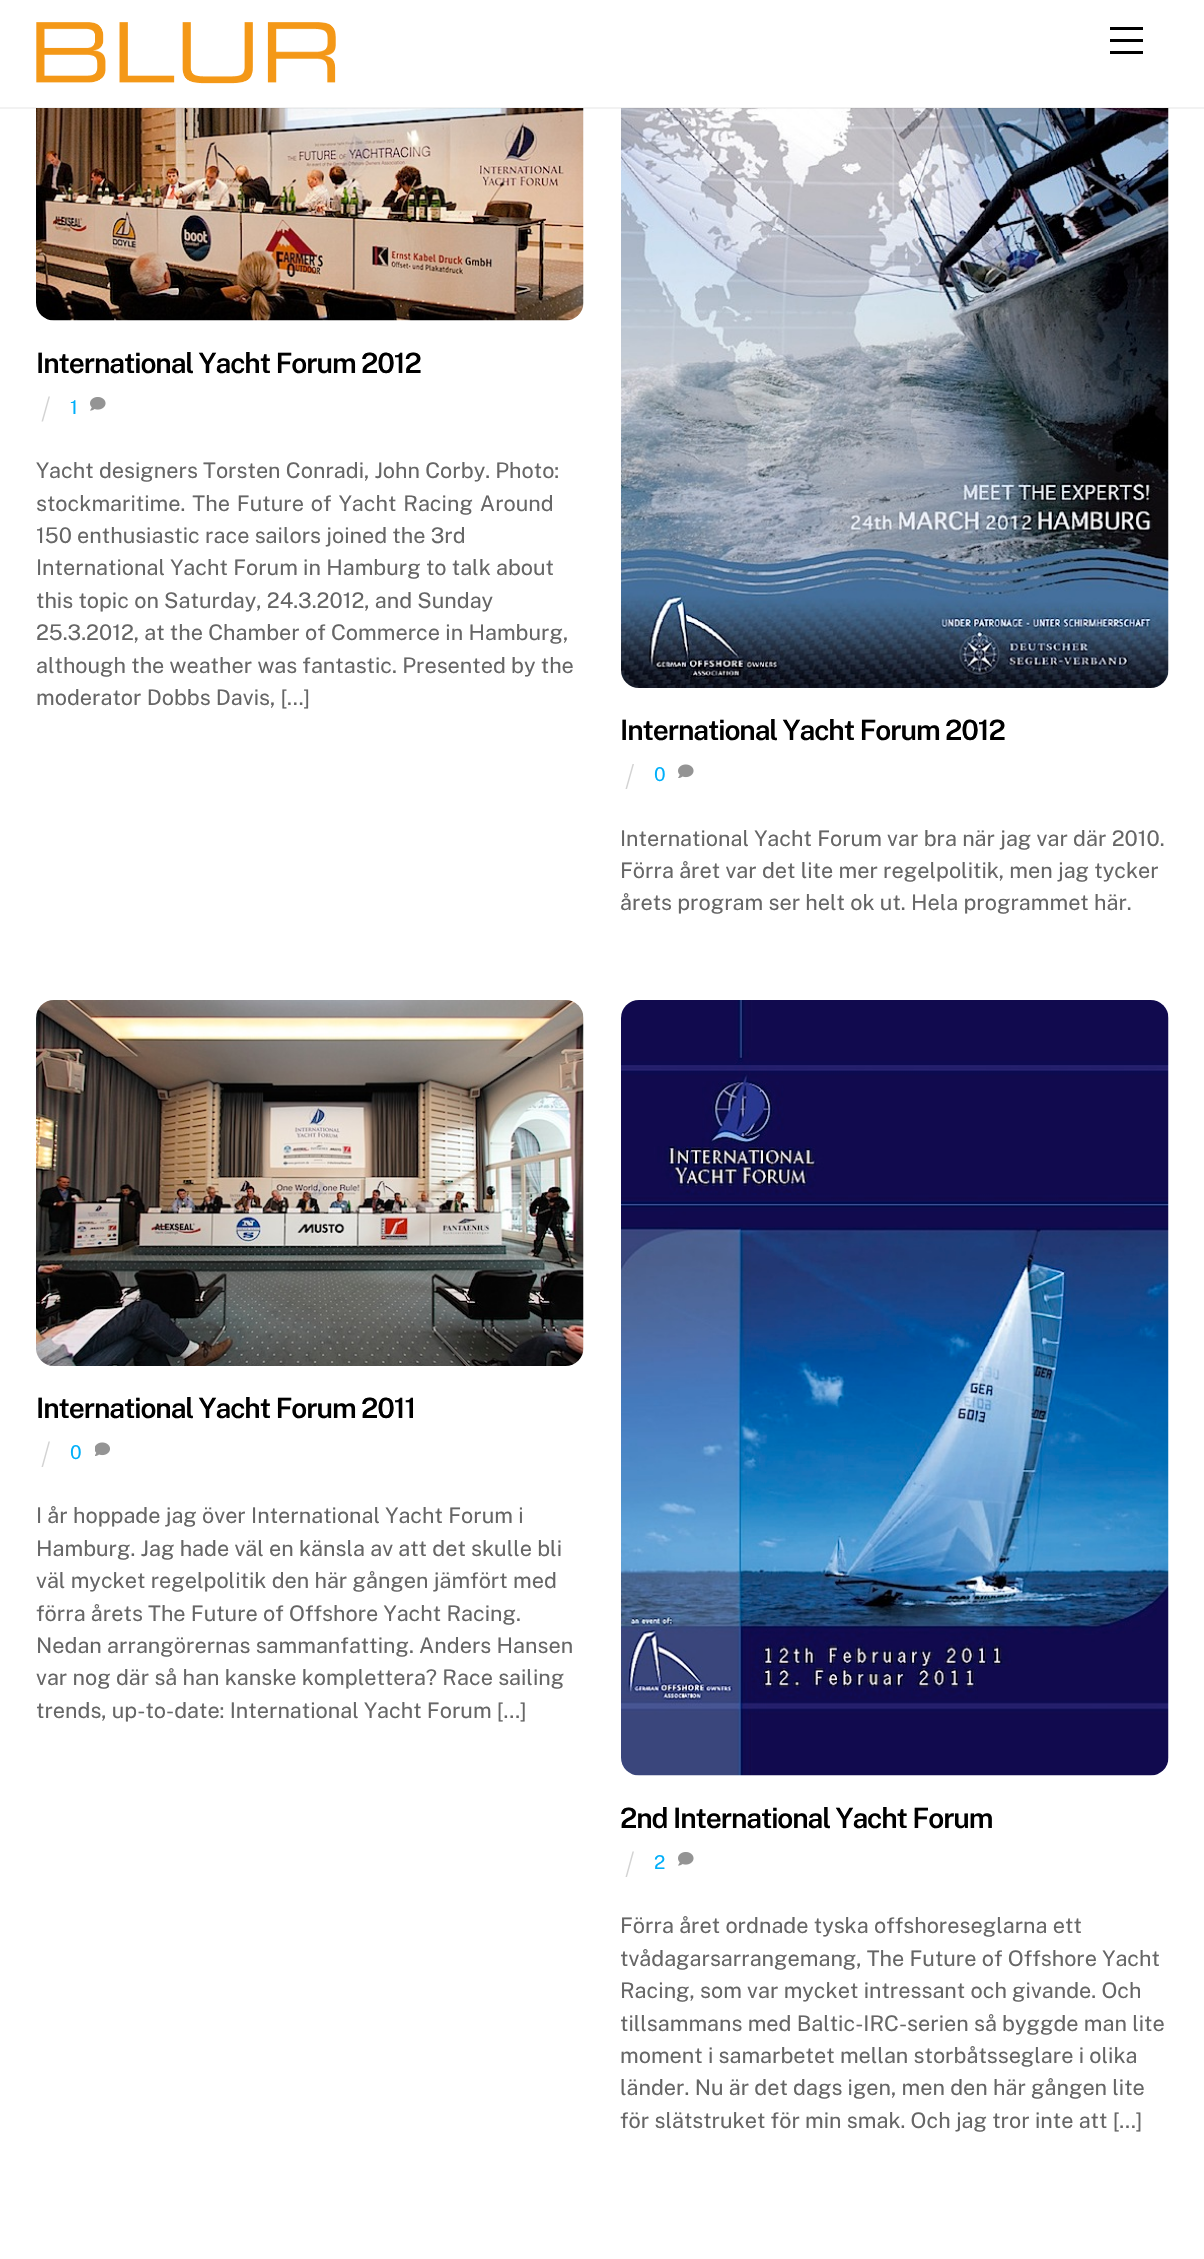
void draw(SkCanvas* canvas) {
	SkPaint paint;
	paint.setAntiAlias(true);
	auto spacedText = [&](const char* s, float x, float y, const SkFont& font, const SkPaint& ink, float letter, float word) {
		std::vector<SkGlyphID> glyphs(font.countText(s, strlen(s), SkTextEncoding::kUTF8));
		std::vector<float> xs(glyphs.size());
		font.textToGlyphs(s, strlen(s), SkTextEncoding::kUTF8, glyphs);
		font.getXPos(glyphs, xs, x);
		float extra = 0;
		for (size_t i = 0; i < glyphs.size(); i++) {
			xs[i] += extra;
			extra += letter + word * (glyphs[i] == font.unicharToGlyph(' '));
		}
		canvas->drawTextBlob(SkTextBlob::MakeFromPosHGlyphs(glyphs, xs, y, font), 0, 0, ink);
	};
	auto svgPath = [&](const char* data, bool evenOdd = false) {
		SkPath result = *SkParsePath::FromSVGString(data);
		if (evenOdd) result.setFillType(SkPathFillType::kEvenOdd);
		return result;
	};
	canvas->clear(0xffffffff);
	canvas->drawImageRect(SkImages::DeferredFromEncodedData(SkData::MakeFromFileName("img2.png")), SkRect::MakeXYWH(36, 108, 548, 213), SkSamplingOptions());
	canvas->drawImageRect(SkImages::DeferredFromEncodedData(SkData::MakeFromFileName("img4.png")), SkRect::MakeXYWH(621, 108, 548, 580), SkSamplingOptions());
	paint.setColor(0x0d000000);
	canvas->drawRect(SkRect::MakeXYWH(0, 107, 1204, 2), paint);
	canvas->drawImageRect(SkImages::DeferredFromEncodedData(SkData::MakeFromFileName("img1.png")), SkRect::MakeXYWH(36, 22, 300, 62), SkSamplingOptions());
	paint.setColor(0xff000000);
	canvas->drawRect(SkRect::MakeXYWH(1110, 51, 33, 3), paint);
	canvas->drawRect(SkRect::MakeXYWH(1110, 27, 33, 3), paint);
	canvas->drawRect(SkRect::MakeXYWH(1110, 39, 33, 3), paint);
	SkFont f1(fontMgr->matchFamilyStyle("Public Sans", SkFontStyle(600, SkFontStyle::kNormal_Width, SkFontStyle::kUpright_Slant)), 28.1);
	f1.setSubpixel(true);
	spacedText("International Yacht Forum 2012", 36, 373, f1, paint, -1.1, 0);
	paint.setColor(0xffd3d3d3);
	canvas->drawPath(svgPath("M48.5 396.5H50L43 421.5H41.5Z"), paint);
	SkFont f2(fontMgr->matchFamilyStyle("Public Sans", SkFontStyle::Normal()), 19);
	f2.setSubpixel(true);
	paint.setColor(0xff00affa);
	canvas->drawString("1", 70, 414, f2, paint);
	canvas->drawImageRect(SkImages::DeferredFromEncodedData(SkData::MakeFromFileName("img3.png")), SkRect::MakeXYWH(90, 397, 16, 14), SkSamplingOptions());
	SkFont f3(fontMgr->matchFamilyStyle("Public Sans", SkFontStyle::Normal()), 21.6);
	f3.setSubpixel(true);
	paint.setColor(0xff666666);
	canvas->drawString("Yacht designers Torsten Conradi, John Corby. Photo:", 36, 478, f3, paint);
	spacedText("stockmaritime. The Future of Yacht Racing Around", 36, 511, f3, paint, 0, 1.75);
	canvas->drawString("150 enthusiastic race sailors joined the 3rd", 36, 543, f3, paint);
	canvas->drawString("International Yacht Forum in Hamburg to talk about", 36, 575, f3, paint);
	canvas->drawString("this topic on Saturday, 24.3.2012, and Sunday", 36, 608, f3, paint);
	canvas->drawString("25.3.2012, at the Chamber of Commerce in Hamburg,", 36, 640, f3, paint);
	canvas->drawString("although the weather was fantastic. Presented by the", 36, 673, f3, paint);
	canvas->drawString("moderator Dobbs Davis, […]", 36, 705, f3, paint);
	paint.setColor(0xff000000);
	spacedText("International Yacht Forum 2012", 620, 740, f1, paint, -1.1, 0);
	paint.setColor(0xffd3d3d3);
	canvas->drawPath(svgPath("M632.5 764H634L627 789H625.5Z"), paint);
	paint.setColor(0xff00affa);
	canvas->drawString("0", 654, 781, f2, paint);
	canvas->drawImageRect(SkImages::DeferredFromEncodedData(SkData::MakeFromFileName("img5.png")), SkRect::MakeXYWH(678, 764, 16, 14), SkSamplingOptions());
	paint.setColor(0xff666666);
	canvas->drawString("International Yacht Forum var bra när jag var där 2010.", 620, 846, f3, paint);
	canvas->drawString("Förra året var det lite mer regelpolitik, men jag tycker", 620, 878, f3, paint);
	canvas->drawString("årets program ser helt ok ut. Hela programmet här.", 620, 910, f3, paint);
	canvas->drawImageRect(SkImages::DeferredFromEncodedData(SkData::MakeFromFileName("img6.png")), SkRect::MakeXYWH(36, 1000, 548, 366), SkSamplingOptions());
	paint.setColor(0xff000000);
	spacedText("International Yacht Forum 2011", 36, 1418, f1, paint, -1.1, 0);
	paint.setColor(0xffd3d3d3);
	canvas->drawPath(svgPath("M48.5 1441.5H50L43 1467H41.5Z"), paint);
	paint.setColor(0xff00affa);
	canvas->drawString("0", 70, 1459, f2, paint);
	canvas->drawImageRect(SkImages::DeferredFromEncodedData(SkData::MakeFromFileName("img7.png")), SkRect::MakeXYWH(95, 1442, 15, 14), SkSamplingOptions());
	paint.setColor(0xff666666);
	canvas->drawString("I år hoppade jag över International Yacht Forum i", 36, 1523, f3, paint);
	canvas->drawString("Hamburg. Jag hade väl en känsla av att det skulle bli", 36, 1556, f3, paint);
	canvas->drawString("väl mycket regelpolitik den här gången jämfört med", 36, 1588, f3, paint);
	canvas->drawString("förra årets The Future of Offshore Yacht Racing.", 36, 1621, f3, paint);
	canvas->drawString("Nedan arrangörernas sammanfatting. Anders Hansen", 36, 1653, f3, paint);
	canvas->drawString("var nog där så han kanske komplettera? Race sailing", 36, 1685, f3, paint);
	canvas->drawString("trends, up-to-date: International Yacht Forum […]", 36, 1718, f3, paint);
	canvas->drawImageRect(SkImages::DeferredFromEncodedData(SkData::MakeFromFileName("img8.png")), SkRect::MakeXYWH(621, 1000, 548, 776), SkSamplingOptions());
	paint.setColor(0xff000000);
	spacedText("2nd International Yacht Forum", 620, 1828, f1, paint, -1.1, 0);
	paint.setColor(0xffd3d3d3);
	canvas->drawPath(svgPath("M632.5 1851.5H634L627 1877H625.5Z"), paint);
	paint.setColor(0xff00affa);
	canvas->drawString("2", 654, 1869, f2, paint);
	canvas->drawImageRect(SkImages::DeferredFromEncodedData(SkData::MakeFromFileName("img3.png")), SkRect::MakeXYWH(678, 1852, 16, 14), SkSamplingOptions());
	paint.setColor(0xff666666);
	canvas->drawString("Förra året ordnade tyska offshoreseglarna ett", 620, 1933, f3, paint);
	canvas->drawString("tvådagarsarrangemang, The Future of Offshore Yacht", 620, 1966, f3, paint);
	canvas->drawString("Racing, som var mycket intressant och givande. Och", 620, 1998, f3, paint);
	canvas->drawString("tillsammans med Baltic-IRC-serien så byggde man lite", 620, 2031, f3, paint);
	canvas->drawString("moment i samarbetet mellan storbåtsseglare i olika", 620, 2063, f3, paint);
	canvas->drawString("länder. Nu är det dags igen, men den här gången lite", 620, 2095, f3, paint);
	canvas->drawString("för slätstruket för min smak. Och jag tror inte att […]", 620, 2128, f3, paint);
}
